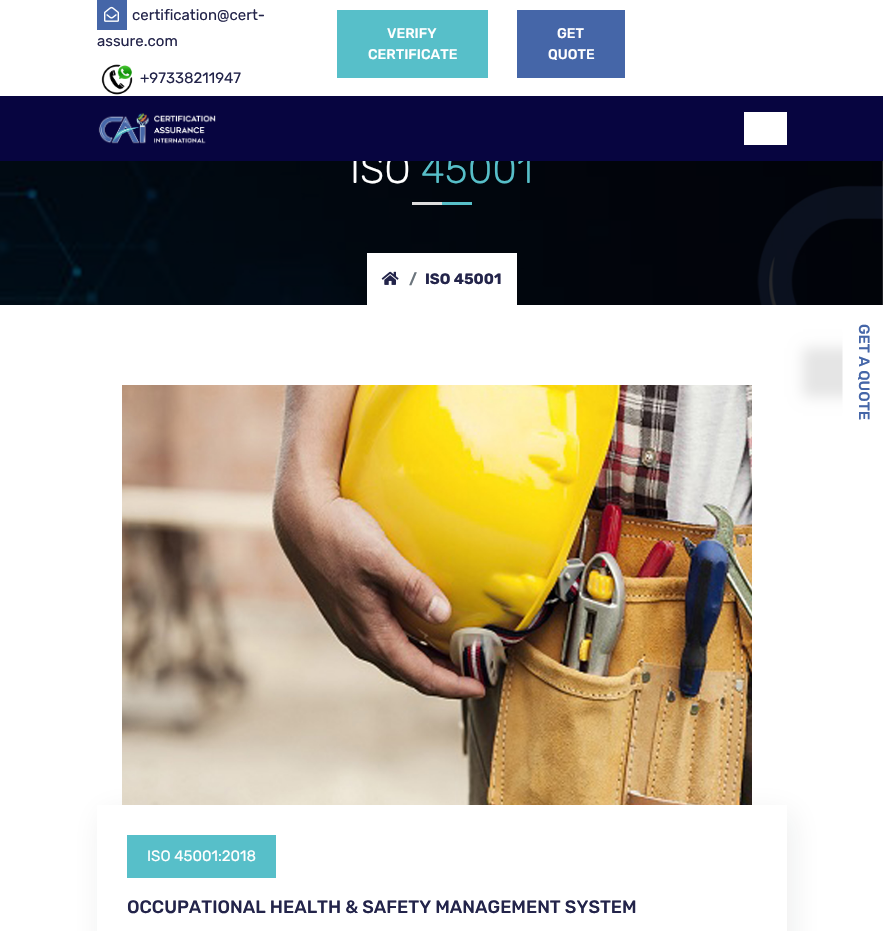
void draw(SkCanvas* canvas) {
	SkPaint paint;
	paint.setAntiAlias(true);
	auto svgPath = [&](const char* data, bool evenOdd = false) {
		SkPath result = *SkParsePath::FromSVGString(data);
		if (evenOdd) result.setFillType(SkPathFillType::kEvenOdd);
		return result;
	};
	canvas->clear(0xffffffff);
	paint.setColor(0xff4566a8);
	canvas->drawRect(SkRect::MakeXYWH(97, 0, 30, 30), paint);
	canvas->drawImageRect(SkImages::DeferredFromEncodedData(SkData::MakeFromFileName("img1.png")), SkRect::MakeXYWH(104, 6, 15, 16), SkSamplingOptions());
	SkFont f1(fontMgr->matchFamilyStyle("Rubik", SkFontStyle::Normal()), 15);
	f1.setSubpixel(true);
	paint.setColor(0xff23244a);
	canvas->drawString("certification@cert-", 132, 20, f1, paint);
	canvas->drawString("assure.com", 97, 46, f1, paint);
	canvas->drawImageRect(SkImages::DeferredFromEncodedData(SkData::MakeFromFileName("img2.png")), SkRect::MakeXYWH(101, 64, 32, 31), SkSamplingOptions());
	canvas->drawString("+97338211947", 140, 83, f1, paint);
	paint.setColor(0xff57bfc9);
	canvas->drawRect(SkRect::MakeXYWH(337, 10, 151, 68), paint);
	SkFont f2(fontMgr->matchFamilyStyle("Rubik", SkFontStyle(500, SkFontStyle::kNormal_Width, SkFontStyle::kUpright_Slant)), 14);
	f2.setSubpixel(true);
	paint.setColor(0xffffffff);
	canvas->drawString("VERIFY", 387, 38, f2, paint);
	canvas->drawString("CERTIFICATE", 368, 59, f2, paint);
	paint.setColor(0xff4566a8);
	canvas->drawRect(SkRect::MakeXYWH(517, 10, 108, 68), paint);
	paint.setColor(0xffffffff);
	canvas->drawString("GET", 557, 38, f2, paint);
	canvas->drawString("QUOTE", 548, 59, f2, paint);
	canvas->drawImageRect(SkImages::DeferredFromEncodedData(SkData::MakeFromFileName("img4.png")), SkRect::MakeXYWH(0, 161, 883, 144), SkSamplingOptions());
	SkFont f3(fontMgr->matchFamilyStyle("Rubik", SkFontStyle(300, SkFontStyle::kNormal_Width, SkFontStyle::kUpright_Slant)), 40);
	f3.setSubpixel(true);
	canvas->drawString("ISO", 350, 183, f3, paint);
	paint.setColor(0xff57bfc9);
	canvas->drawString("45001", 421, 183, f3, paint);
	paint.setColor(0xff070540);
	canvas->drawRect(SkRect::MakeXYWH(0, 96, 883, 65), paint);
	canvas->drawImageRect(SkImages::DeferredFromEncodedData(SkData::MakeFromFileName("img3.png")), SkRect::MakeXYWH(98, 113, 118, 31), SkSamplingOptions());
	paint.setColor(0xffffffff);
	canvas->drawRect(SkRect::MakeXYWH(744, 112, 43, 33), paint);
	paint.setColor(0xffdddddd);
	canvas->drawRect(SkRect::MakeXYWH(412, 202, 30, 3), paint);
	paint.setColor(0xff57bfc9);
	canvas->drawRect(SkRect::MakeXYWH(442, 202, 30, 3), paint);
	paint.setColor(0xffffffff);
	canvas->drawRect(SkRect::MakeXYWH(367, 253, 150, 52), paint);
	canvas->drawImageRect(SkImages::DeferredFromEncodedData(SkData::MakeFromFileName("img5.png")), SkRect::MakeXYWH(381, 271, 18, 14), SkSamplingOptions());
	SkFont f4(fontMgr->matchFamilyStyle("Rubik", SkFontStyle::Bold()), 15);
	f4.setSubpixel(true);
	paint.setColor(0xff6c757d);
	canvas->drawString("/", 409, 284, f4, paint);
	paint.setColor(0xff23244a);
	canvas->drawString("ISO 45001", 425, 284, f4, paint);
	canvas->save();
	canvas->clipPath(svgPath("M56 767H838V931H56ZM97 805H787V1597H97Z", true), true);
	paint.setColor(0x141f2325);
	paint.setMaskFilter(SkMaskFilter::MakeBlur(kNormal_SkBlurStyle, 15));
	canvas->drawRect(SkRect::MakeXYWH(102, 813, 690, 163), paint);
	paint.setMaskFilter(nullptr);
	canvas->restore();
	canvas->drawImageRect(SkImages::DeferredFromEncodedData(SkData::MakeFromFileName("img6.png")), SkRect::MakeXYWH(122, 385, 630, 420), SkSamplingOptions());
	paint.setColor(0xff57bfc9);
	canvas->drawRect(SkRect::MakeXYWH(127, 835, 149, 43), paint);
	paint.setColor(0xffffffff);
	canvas->drawString("ISO 45001:2018", 147, 861, f1, paint);
	SkFont f5(fontMgr->matchFamilyStyle("Rubik", SkFontStyle(500, SkFontStyle::kNormal_Width, SkFontStyle::kUpright_Slant)), 18);
	f5.setSubpixel(true);
	paint.setColor(0xff23244a);
	canvas->drawString("OCCUPATIONAL HEALTH & SAFETY MANAGEMENT SYSTEM", 127, 913, f5, paint);
	canvas->save();
	canvas->clipPath(svgPath("M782 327H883V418H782ZM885 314.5V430.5H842.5V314.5Z", true), true);
	paint.setColor(0x1a000000);
	paint.setMaskFilter(SkMaskFilter::MakeBlur(kNormal_SkBlurStyle, 6.5));
	canvas->drawRect(SkRect::MakeXYWH(803, 348, 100, 49), paint);
	paint.setMaskFilter(nullptr);
	canvas->restore();
	SkFont f6(fontMgr->matchFamilyStyle("Rubik", SkFontStyle(500, SkFontStyle::kNormal_Width, SkFontStyle::kUpright_Slant)), 15);
	f6.setSubpixel(true);
	paint.setColor(0xff4566a8);
	canvas->save();
	canvas->rotate(90, 859, 324);
	canvas->drawString("GET A QUOTE", 859, 324, f6, paint);
	canvas->restore();
}
